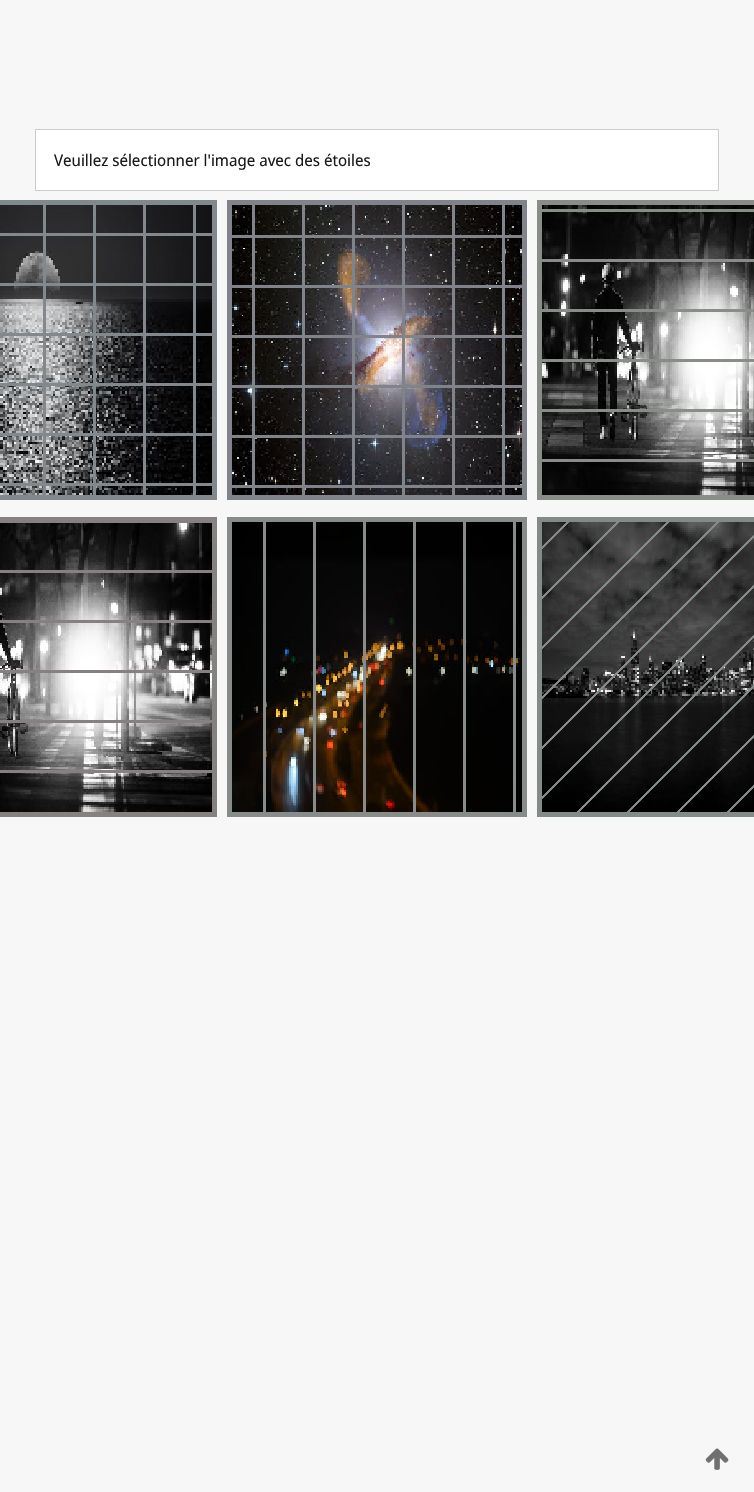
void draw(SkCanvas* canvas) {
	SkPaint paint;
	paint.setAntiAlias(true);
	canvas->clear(0xfff7f7f7);
	paint.setColor(0xffffffff);
	canvas->drawRect(SkRect::MakeXYWH(35.5, 129.5, 683, 61), paint);
	paint.setStroke(true);
	paint.setStrokeWidth(1);
	paint.setColor(0xffcccccc);
	canvas->drawRect(SkRect::MakeXYWH(35.5, 129.5, 683, 61), paint);
	SkFont f1(fontMgr->matchFamilyStyle("Noto Sans Display", SkFontStyle::Normal()), 16);
	f1.setSubpixel(true);
	paint.setStroke(false);
	paint.setColor(0xff1a1a1a);
	canvas->drawString("Veuillez sélectionner l'image avec des étoiles", 54, 166, f1, paint);
	canvas->drawImageRect(SkImages::DeferredFromEncodedData(SkData::MakeFromFileName("img1.png")), SkRect::MakeXYWH(0, 200, 217, 300), SkSamplingOptions());
	canvas->drawImageRect(SkImages::DeferredFromEncodedData(SkData::MakeFromFileName("img2.png")), SkRect::MakeXYWH(227, 200, 300, 300), SkSamplingOptions());
	canvas->drawImageRect(SkImages::DeferredFromEncodedData(SkData::MakeFromFileName("img3.png")), SkRect::MakeXYWH(537, 200, 217, 300), SkSamplingOptions());
	canvas->drawImageRect(SkImages::DeferredFromEncodedData(SkData::MakeFromFileName("img4.png")), SkRect::MakeXYWH(0, 517, 217, 300), SkSamplingOptions());
	canvas->drawImageRect(SkImages::DeferredFromEncodedData(SkData::MakeFromFileName("img5.png")), SkRect::MakeXYWH(227, 517, 300, 300), SkSamplingOptions());
	canvas->drawImageRect(SkImages::DeferredFromEncodedData(SkData::MakeFromFileName("img6.png")), SkRect::MakeXYWH(537, 517, 217, 300), SkSamplingOptions());
	canvas->drawImageRect(SkImages::DeferredFromEncodedData(SkData::MakeFromFileName("img7.png")), SkRect::MakeXYWH(705, 1448, 24, 22), SkSamplingOptions());
}
